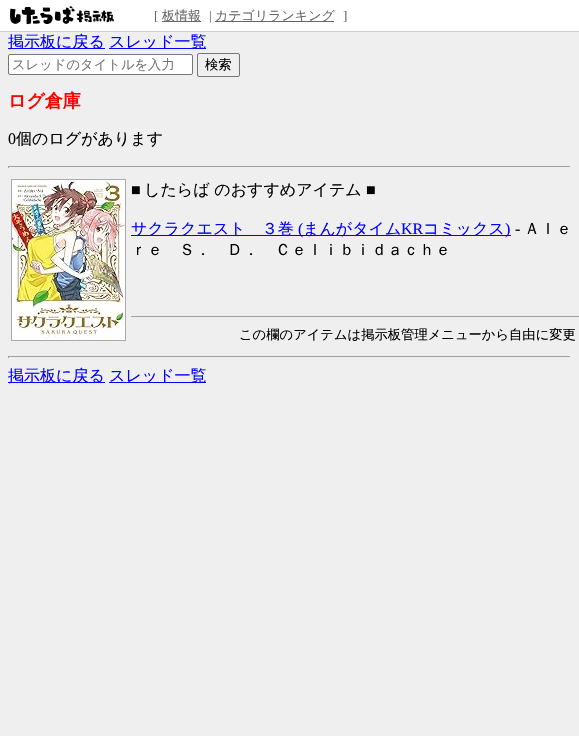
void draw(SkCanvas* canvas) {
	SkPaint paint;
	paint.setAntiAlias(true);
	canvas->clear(0xffefefef);
	paint.setColor(0xffffffff);
	canvas->drawRect(SkRect::MakeXYWH(0, 0, 579, 31), paint);
	paint.setColor(0xffcccccc);
	canvas->drawRect(SkRect::MakeXYWH(0, 31, 579, 1), paint);
	canvas->drawImageRect(SkImages::DeferredFromEncodedData(SkData::MakeFromFileName("img1.png")), SkRect::MakeXYWH(10, 6, 104, 19), SkSamplingOptions());
	SkFont f1(fontMgr->matchFamilyStyle("Liberation Serif", SkFontStyle::Normal()), 13);
	f1.setSubpixel(true);
	paint.setColor(0xff666666);
	canvas->drawString("[", 154, 20, f1, paint);
	canvas->drawRect(SkRect::MakeXYWH(162, 21, 39, 1), paint);
	SkFont f2(fontMgr->matchFamilyStyle("WenQuanYi Zen Hei", SkFontStyle(500, SkFontStyle::kNormal_Width, SkFontStyle::kUpright_Slant)), 13);
	f2.setSubpixel(true);
	canvas->drawString("板情報", 162, 20, f2, paint);
	canvas->drawString("|", 209, 20, f1, paint);
	canvas->drawRect(SkRect::MakeXYWH(215, 21, 119, 1), paint);
	canvas->drawString("カテゴリランキング", 215, 20, f2, paint);
	canvas->drawString("]", 343, 20, f1, paint);
	paint.setColor(0xff0000ff);
	canvas->drawRect(SkRect::MakeXYWH(8, 48, 97, 1), paint);
	SkFont f3(fontMgr->matchFamilyStyle("WenQuanYi Zen Hei", SkFontStyle(500, SkFontStyle::kNormal_Width, SkFontStyle::kUpright_Slant)), 16);
	f3.setSubpixel(true);
	canvas->drawString("掲示板に戻る", 8, 47, f3, paint);
	canvas->drawRect(SkRect::MakeXYWH(109, 48, 97, 1), paint);
	canvas->drawString("スレッド一覧", 109, 47, f3, paint);
	paint.setColor(0xffffffff);
	canvas->drawRoundRect(SkRect::MakeXYWH(8.5, 54.5, 184, 20), 1.5, 1.5, paint);
	paint.setStroke(true);
	paint.setStrokeWidth(1);
	paint.setColor(0xff767676);
	canvas->drawRoundRect(SkRect::MakeXYWH(8.5, 54.5, 184, 20), 1.5, 1.5, paint);
	SkFont f4(fontMgr->matchFamilyStyle("WenQuanYi Zen Hei", SkFontStyle(500, SkFontStyle::kNormal_Width, SkFontStyle::kUpright_Slant)), 13.3);
	f4.setSubpixel(true);
	paint.setStroke(false);
	paint.setColor(0xff757575);
	canvas->drawString("スレッドのタイトルを入力", 12, 69, f4, paint);
	paint.setStroke(true);
	paint.setColor(0xff767676);
	canvas->drawRoundRect(SkRect::MakeXYWH(197.5, 53.5, 42, 23), 1.5, 1.5, paint);
	paint.setStroke(false);
	paint.setColor(0xff000000);
	canvas->drawString("検索", 205, 69, f4, paint);
	SkFont f5(fontMgr->matchFamilyStyle("WenQuanYi Zen Hei", SkFontStyle::Bold()), 18);
	f5.setSubpixel(true);
	paint.setColor(0xffff0000);
	canvas->drawString("ログ倉庫", 8, 107, f5, paint);
	SkFont f6(fontMgr->matchFamilyStyle("Liberation Serif", SkFontStyle::Normal()), 16);
	f6.setSubpixel(true);
	paint.setColor(0xff000000);
	canvas->drawString("0", 8, 144, f6, paint);
	canvas->drawString("個のログがあります", 16, 144, f3, paint);
	paint.setColor(0xff9f9f9f);
	canvas->drawRect(SkRect::MakeXYWH(8, 166, 563, 1), paint);
	paint.setColor(0xffeeeeee);
	canvas->drawRect(SkRect::MakeXYWH(570, 166, 1, 2), paint);
	paint.setColor(0xff9f9f9f);
	canvas->drawRect(SkRect::MakeXYWH(8, 166, 1, 2), paint);
	paint.setStroke(true);
	paint.setColor(0xffaaaaaa);
	canvas->drawRect(SkRect::MakeXYWH(11.5, 179.5, 114, 161), paint);
	canvas->drawImageRect(SkImages::DeferredFromEncodedData(SkData::MakeFromFileName("img2.png")), SkRect::MakeXYWH(12, 180, 113, 160), SkSamplingOptions());
	paint.setStroke(false);
	paint.setColor(0xff000000);
	canvas->drawString("■", 131, 195, f6, paint);
	canvas->drawString("したらば のおすすめアイテム", 144, 195, f3, paint);
	canvas->drawString("■", 366, 195, f6, paint);
	paint.setColor(0xff0000ff);
	canvas->drawRect(SkRect::MakeXYWH(131, 235, 380, 1), paint);
	canvas->drawString("サクラクエスト　３巻", 131, 234, f3, paint);
	canvas->drawString("(", 298, 234, f6, paint);
	canvas->drawString("まんがタイム", 303, 234, f3, paint);
	canvas->drawString("KR", 401, 234, f6, paint);
	canvas->drawString("コミックス", 423, 234, f3, paint);
	canvas->drawString(")", 505, 234, f6, paint);
	paint.setColor(0xff000000);
	canvas->drawString("-", 515, 234, f6, paint);
	canvas->drawString("Ａｌｅ", 524, 234, f3, paint);
	canvas->drawString("ｒｅ　Ｓ．　Ｄ．　Ｃｅｌｉｂｉｄａｃｈｅ", 131, 255, f3, paint);
	paint.setColor(0xff9f9f9f);
	canvas->drawRect(SkRect::MakeXYWH(131, 316, 448, 1), paint);
	paint.setColor(0xff000000);
	canvas->drawString("この欄のアイテムは掲示板管理メニューから自由に変更", 239, 339, f4, paint);
	paint.setColor(0xff9f9f9f);
	canvas->drawRect(SkRect::MakeXYWH(8, 356, 563, 1), paint);
	paint.setColor(0xffeeeeee);
	canvas->drawRect(SkRect::MakeXYWH(570, 356, 1, 2), paint);
	paint.setColor(0xff9f9f9f);
	canvas->drawRect(SkRect::MakeXYWH(8, 356, 1, 2), paint);
	paint.setColor(0xff0000ff);
	canvas->drawRect(SkRect::MakeXYWH(8, 382, 97, 1), paint);
	canvas->drawString("掲示板に戻る", 8, 381, f3, paint);
	canvas->drawRect(SkRect::MakeXYWH(109, 382, 97, 1), paint);
	canvas->drawString("スレッド一覧", 109, 381, f3, paint);
}
